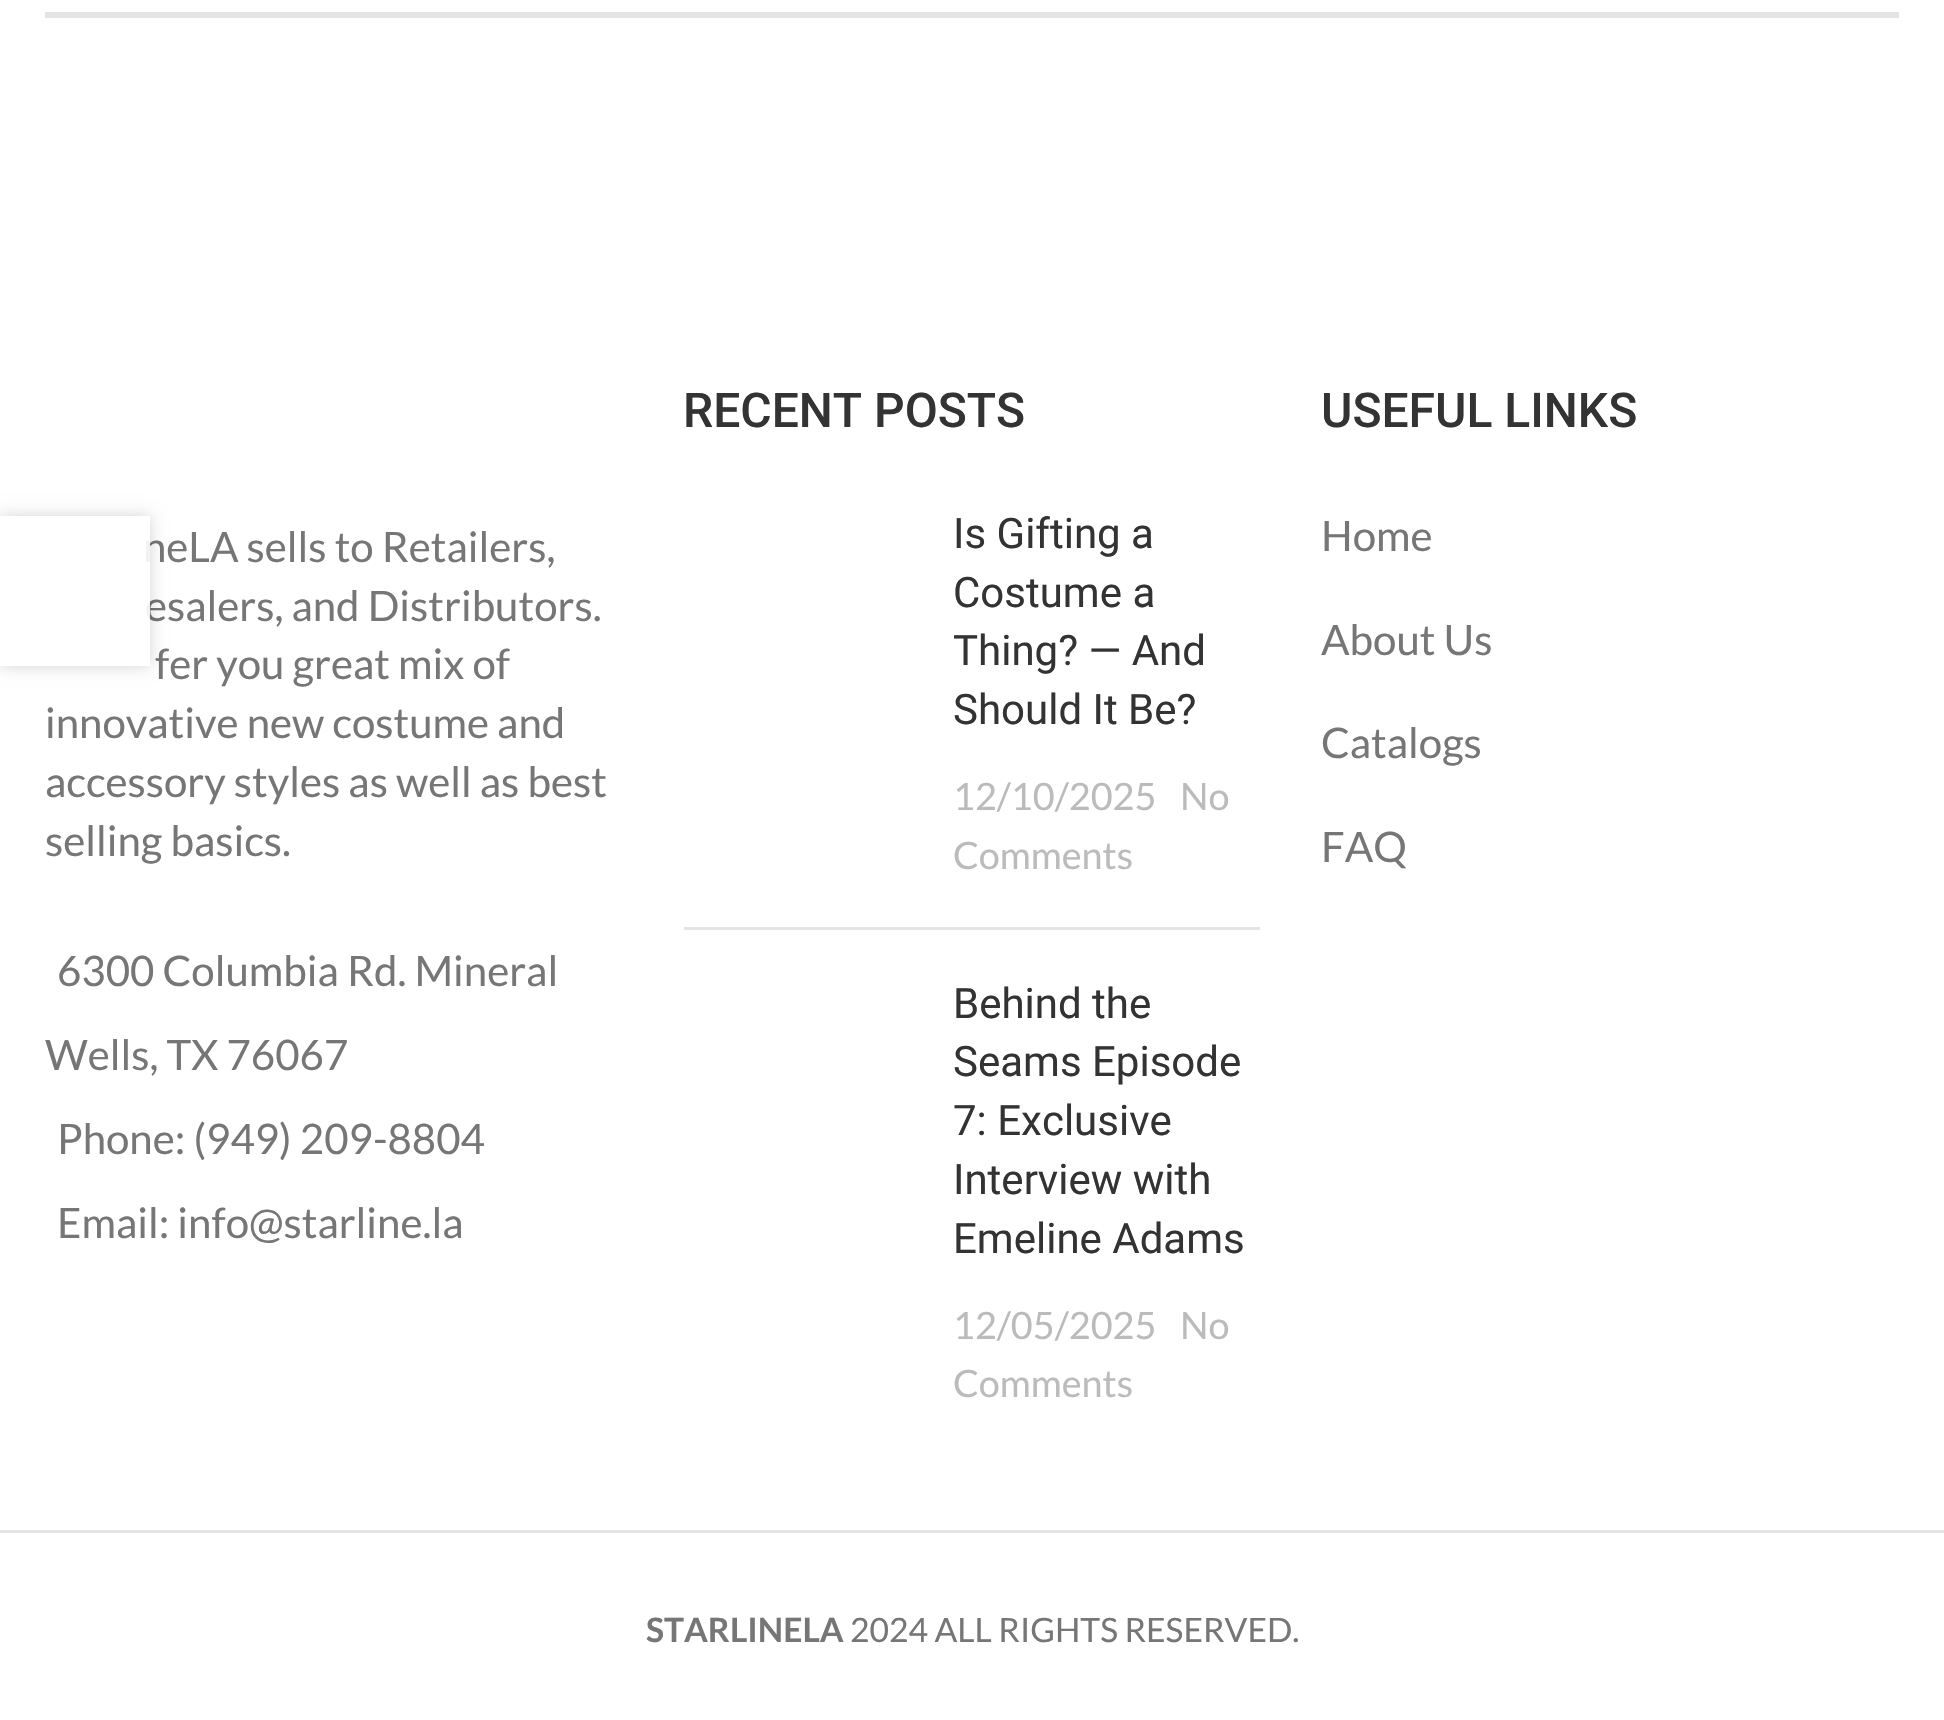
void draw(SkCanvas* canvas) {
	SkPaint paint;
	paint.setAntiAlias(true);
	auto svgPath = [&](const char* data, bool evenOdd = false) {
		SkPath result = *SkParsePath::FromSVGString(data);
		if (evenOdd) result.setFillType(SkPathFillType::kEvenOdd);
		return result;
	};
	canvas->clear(0xffffffff);
	paint.setColor(0xffe4e4e4);
	canvas->drawRect(SkRect::MakeXYWH(45, 12, 1854, 6), paint);
	SkFont f1(fontMgr->matchFamilyStyle("Lato", SkFontStyle::Normal()), 42);
	f1.setSubpixel(true);
	paint.setColor(0xff767676);
	canvas->drawString("neLA sells to Retailers,", 143, 562, f1, paint);
	canvas->drawString("esalers, and Distributors.", 145, 621, f1, paint);
	canvas->drawString("fer you great mix of", 155, 679, f1, paint);
	canvas->drawString("innovative new costume and", 45, 738, f1, paint);
	canvas->drawString("accessory styles as well as best", 45, 797, f1, paint);
	canvas->drawString("selling basics.", 45, 856, f1, paint);
	canvas->drawString("6300 Columbia Rd. Mineral", 57, 986, f1, paint);
	canvas->drawString("Wells, TX 76067", 45, 1070, f1, paint);
	canvas->drawString("Phone: (949) 209-8804", 57, 1154, f1, paint);
	canvas->drawString("Email: info@starline.la", 57, 1238, f1, paint);
	SkFont f2(fontMgr->matchFamilyStyle("Roboto", SkFontStyle(500, SkFontStyle::kNormal_Width, SkFontStyle::kUpright_Slant)), 48);
	f2.setSubpixel(true);
	paint.setColor(0xff333333);
	canvas->drawString("RECENT POSTS", 683, 427, f2, paint);
	paint.setColor(0xffe4e4e4);
	canvas->drawRect(SkRect::MakeXYWH(684, 927, 576, 3), paint);
	SkFont f3(fontMgr->matchFamilyStyle("Roboto", SkFontStyle::Normal()), 42);
	f3.setSubpixel(true);
	paint.setColor(0xff333333);
	canvas->drawString("Is Gifting a", 953, 548, f3, paint);
	canvas->drawString("Costume a", 953, 607, f3, paint);
	canvas->drawString("Thing? — And", 953, 665, f3, paint);
	canvas->drawString("Should It Be?", 953, 724, f3, paint);
	SkFont f4(fontMgr->matchFamilyStyle("Lato", SkFontStyle::Normal()), 37.75);
	f4.setSubpixel(true);
	paint.setColor(0xffbbbbbb);
	canvas->drawString("12/10/2025", 953, 810, f4, paint);
	canvas->drawString("No", 1180, 810, f4, paint);
	canvas->drawString("Comments", 953, 869, f4, paint);
	paint.setColor(0xff333333);
	canvas->drawString("Behind the", 953, 1018, f3, paint);
	canvas->drawString("Seams Episode", 953, 1076, f3, paint);
	canvas->drawString("7: Exclusive", 953, 1135, f3, paint);
	canvas->drawString("Interview with", 953, 1194, f3, paint);
	canvas->drawString("Emeline Adams", 953, 1253, f3, paint);
	paint.setColor(0xffbbbbbb);
	canvas->drawString("12/05/2025", 953, 1339, f4, paint);
	canvas->drawString("No", 1180, 1339, f4, paint);
	canvas->drawString("Comments", 953, 1397, f4, paint);
	paint.setColor(0xff333333);
	canvas->drawString("USEFUL LINKS", 1321, 427, f2, paint);
	paint.setColor(0xff767676);
	canvas->drawString("Home", 1321, 551, f1, paint);
	canvas->drawString("About Us", 1321, 655, f1, paint);
	canvas->drawString("Catalogs", 1321, 758, f1, paint);
	canvas->drawString("FAQ", 1321, 862, f1, paint);
	paint.setColor(0xffe4e4e4);
	canvas->drawRect(SkRect::MakeXYWH(0, 1530, 1944, 3), paint);
	SkFont f5(fontMgr->matchFamilyStyle("Lato", SkFontStyle::Bold()), 33.6);
	f5.setSubpixel(true);
	paint.setColor(0xff767676);
	canvas->drawString("STARLINELA", 646, 1642, f5, paint);
	SkFont f6(fontMgr->matchFamilyStyle("Lato", SkFontStyle::Normal()), 33.6);
	f6.setSubpixel(true);
	canvas->drawString("2024 ALL RIGHTS RESERVED.", 850, 1642, f6, paint);
	canvas->save();
	canvas->clipPath(svgPath("M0 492H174V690H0ZM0 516H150V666H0Z", true), true);
	paint.setColor(0x2b000000);
	paint.setMaskFilter(SkMaskFilter::MakeBlur(kNormal_SkBlurStyle, 7.5));
	canvas->drawRect(SkRect::MakeXYWH(0, 516, 150, 150), paint);
	paint.setMaskFilter(nullptr);
	canvas->restore();
	paint.setColor(0xe6ffffff);
	canvas->drawRect(SkRect::MakeXYWH(145, 540, 5, 79), paint);
}
